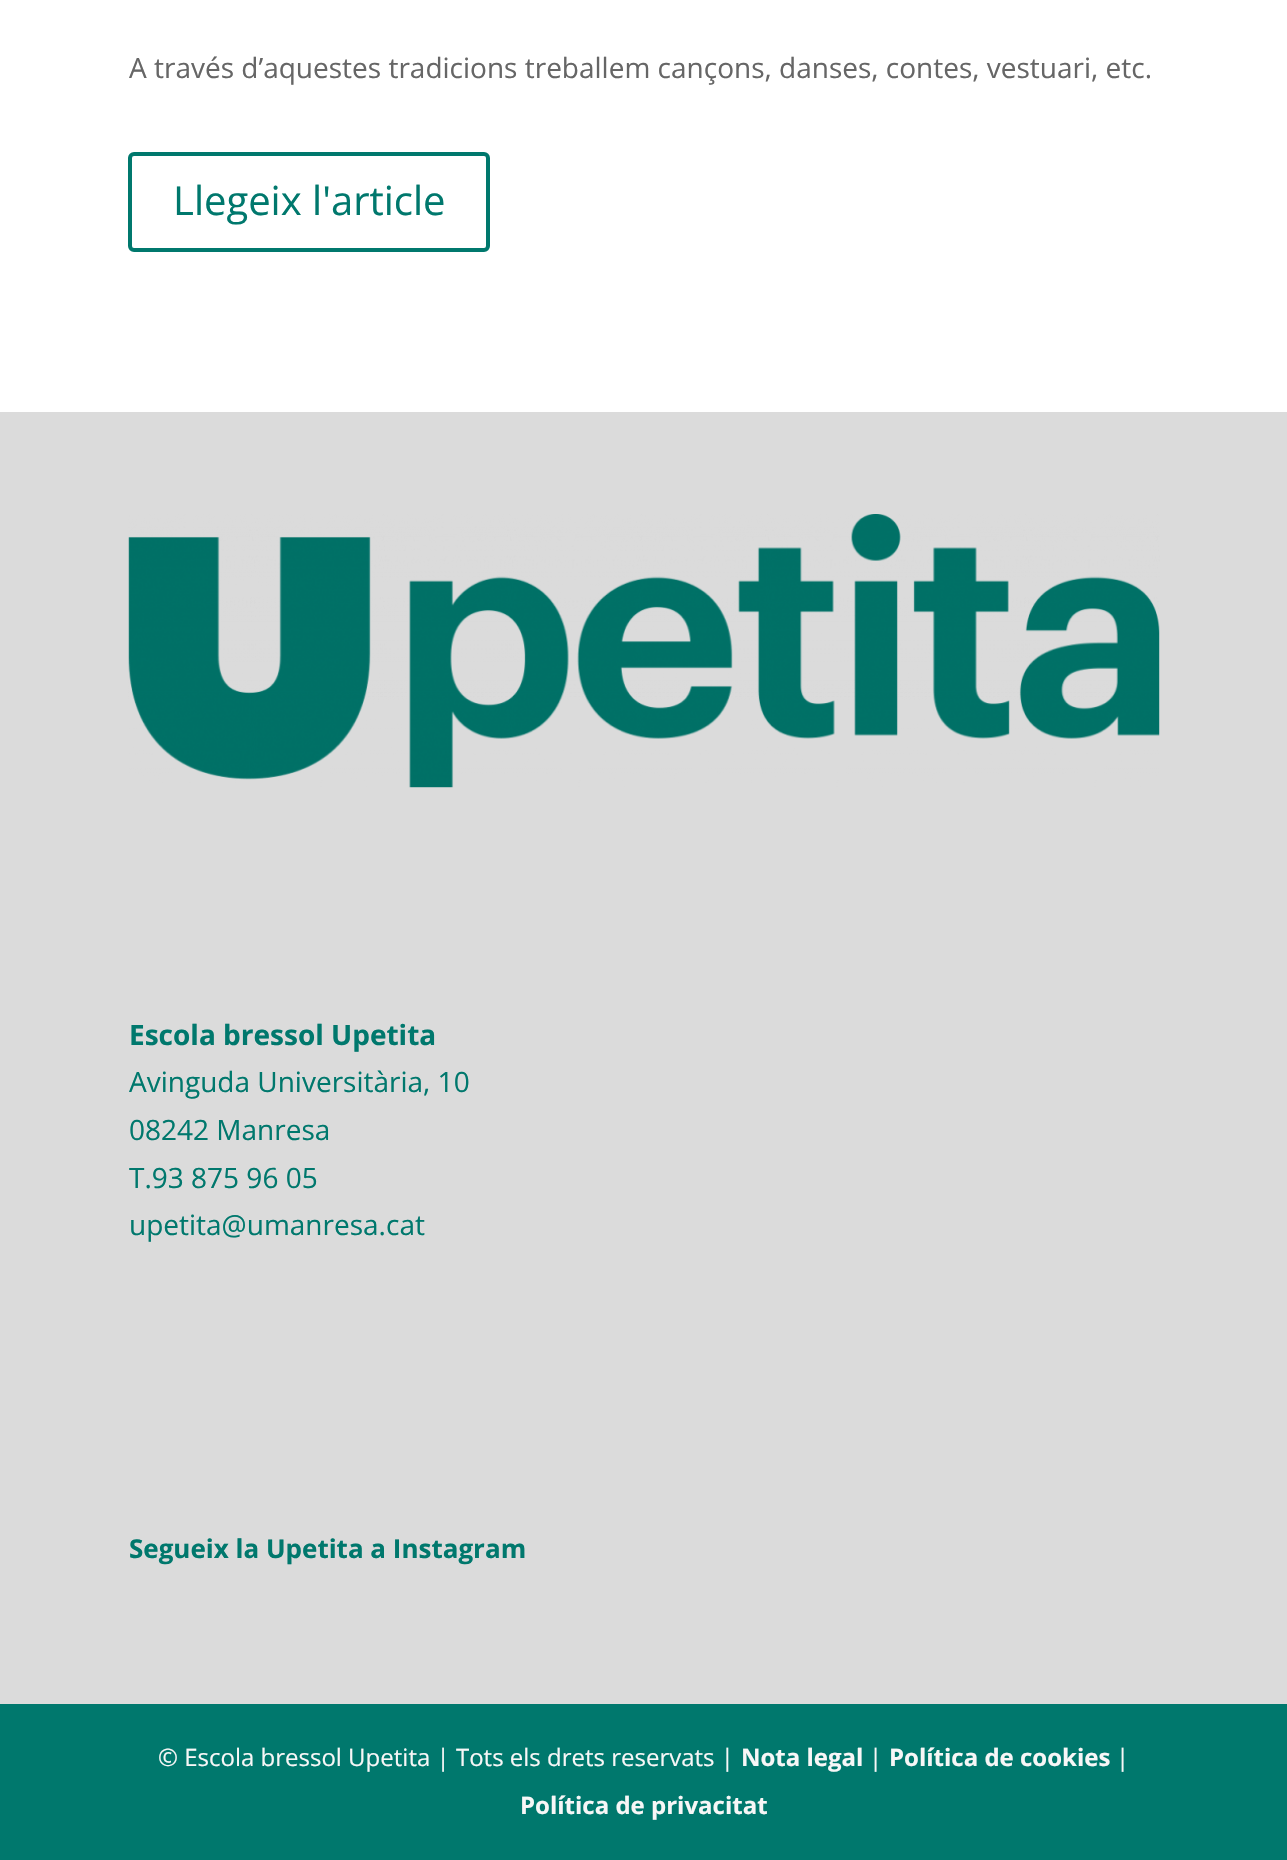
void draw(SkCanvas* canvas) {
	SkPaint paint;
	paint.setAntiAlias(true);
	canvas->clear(0xffffffff);
	SkFont f1(fontMgr->matchFamilyStyle("Open Sans", SkFontStyle::Normal()), 28);
	f1.setSubpixel(true);
	paint.setColor(0xff666666);
	canvas->drawString("A través d’aquestes tradicions treballem cançons, danses, contes, vestuari, etc.", 129, 78, f1, paint);
	paint.setStroke(true);
	paint.setStrokeWidth(4);
	paint.setColor(0xff00786d);
	canvas->drawRoundRect(SkRect::MakeXYWH(130, 154, 358, 96), 4, 4, paint);
	SkFont f2(fontMgr->matchFamilyStyle("Open Sans", SkFontStyle::Normal()), 40);
	f2.setSubpixel(true);
	paint.setStroke(false);
	canvas->drawString("Llegeix l'article", 173, 215, f2, paint);
	paint.setColor(0xffdbdbdb);
	canvas->drawRect(SkRect::MakeXYWH(0, 412, 1287, 1292), paint);
	canvas->drawImageRect(SkImages::DeferredFromEncodedData(SkData::MakeFromFileName("img1.png")), SkRect::MakeXYWH(128, 514, 1032, 274), SkSamplingOptions());
	SkFont f3(fontMgr->matchFamilyStyle("Open Sans", SkFontStyle::Bold()), 28);
	f3.setSubpixel(true);
	paint.setColor(0xff00786d);
	canvas->drawString("Escola bressol Upetita", 129, 1045, f3, paint);
	canvas->drawString("Avinguda Universitària, 10", 129, 1092, f1, paint);
	canvas->drawString("08242 Manresa", 129, 1140, f1, paint);
	canvas->drawString("T.93 875 96 05", 129, 1188, f1, paint);
	canvas->drawString("upetita@umanresa.cat", 129, 1235, f1, paint);
	SkFont f4(fontMgr->matchFamilyStyle("Open Sans", SkFontStyle::Bold()), 26);
	f4.setSubpixel(true);
	canvas->drawString("Segueix la Upetita a Instagram", 129, 1558, f4, paint);
	canvas->drawRect(SkRect::MakeXYWH(0, 1704, 1287, 156), paint);
	SkFont f5(fontMgr->matchFamilyStyle("Open Sans", SkFontStyle::Normal()), 24);
	f5.setSubpixel(true);
	paint.setColor(0xfff7f7f7);
	canvas->drawString("© Escola bressol Upetita | Tots els drets reservats |", 158, 1766, f5, paint);
	SkFont f6(fontMgr->matchFamilyStyle("Open Sans", SkFontStyle::Bold()), 24);
	f6.setSubpixel(true);
	canvas->drawString("Nota legal", 741, 1766, f6, paint);
	canvas->drawString("|", 869, 1766, f5, paint);
	canvas->drawString("Política de cookies", 889, 1766, f6, paint);
	canvas->drawString("|", 1116, 1766, f5, paint);
	canvas->drawString("Política de privacitat", 520, 1814, f6, paint);
}
